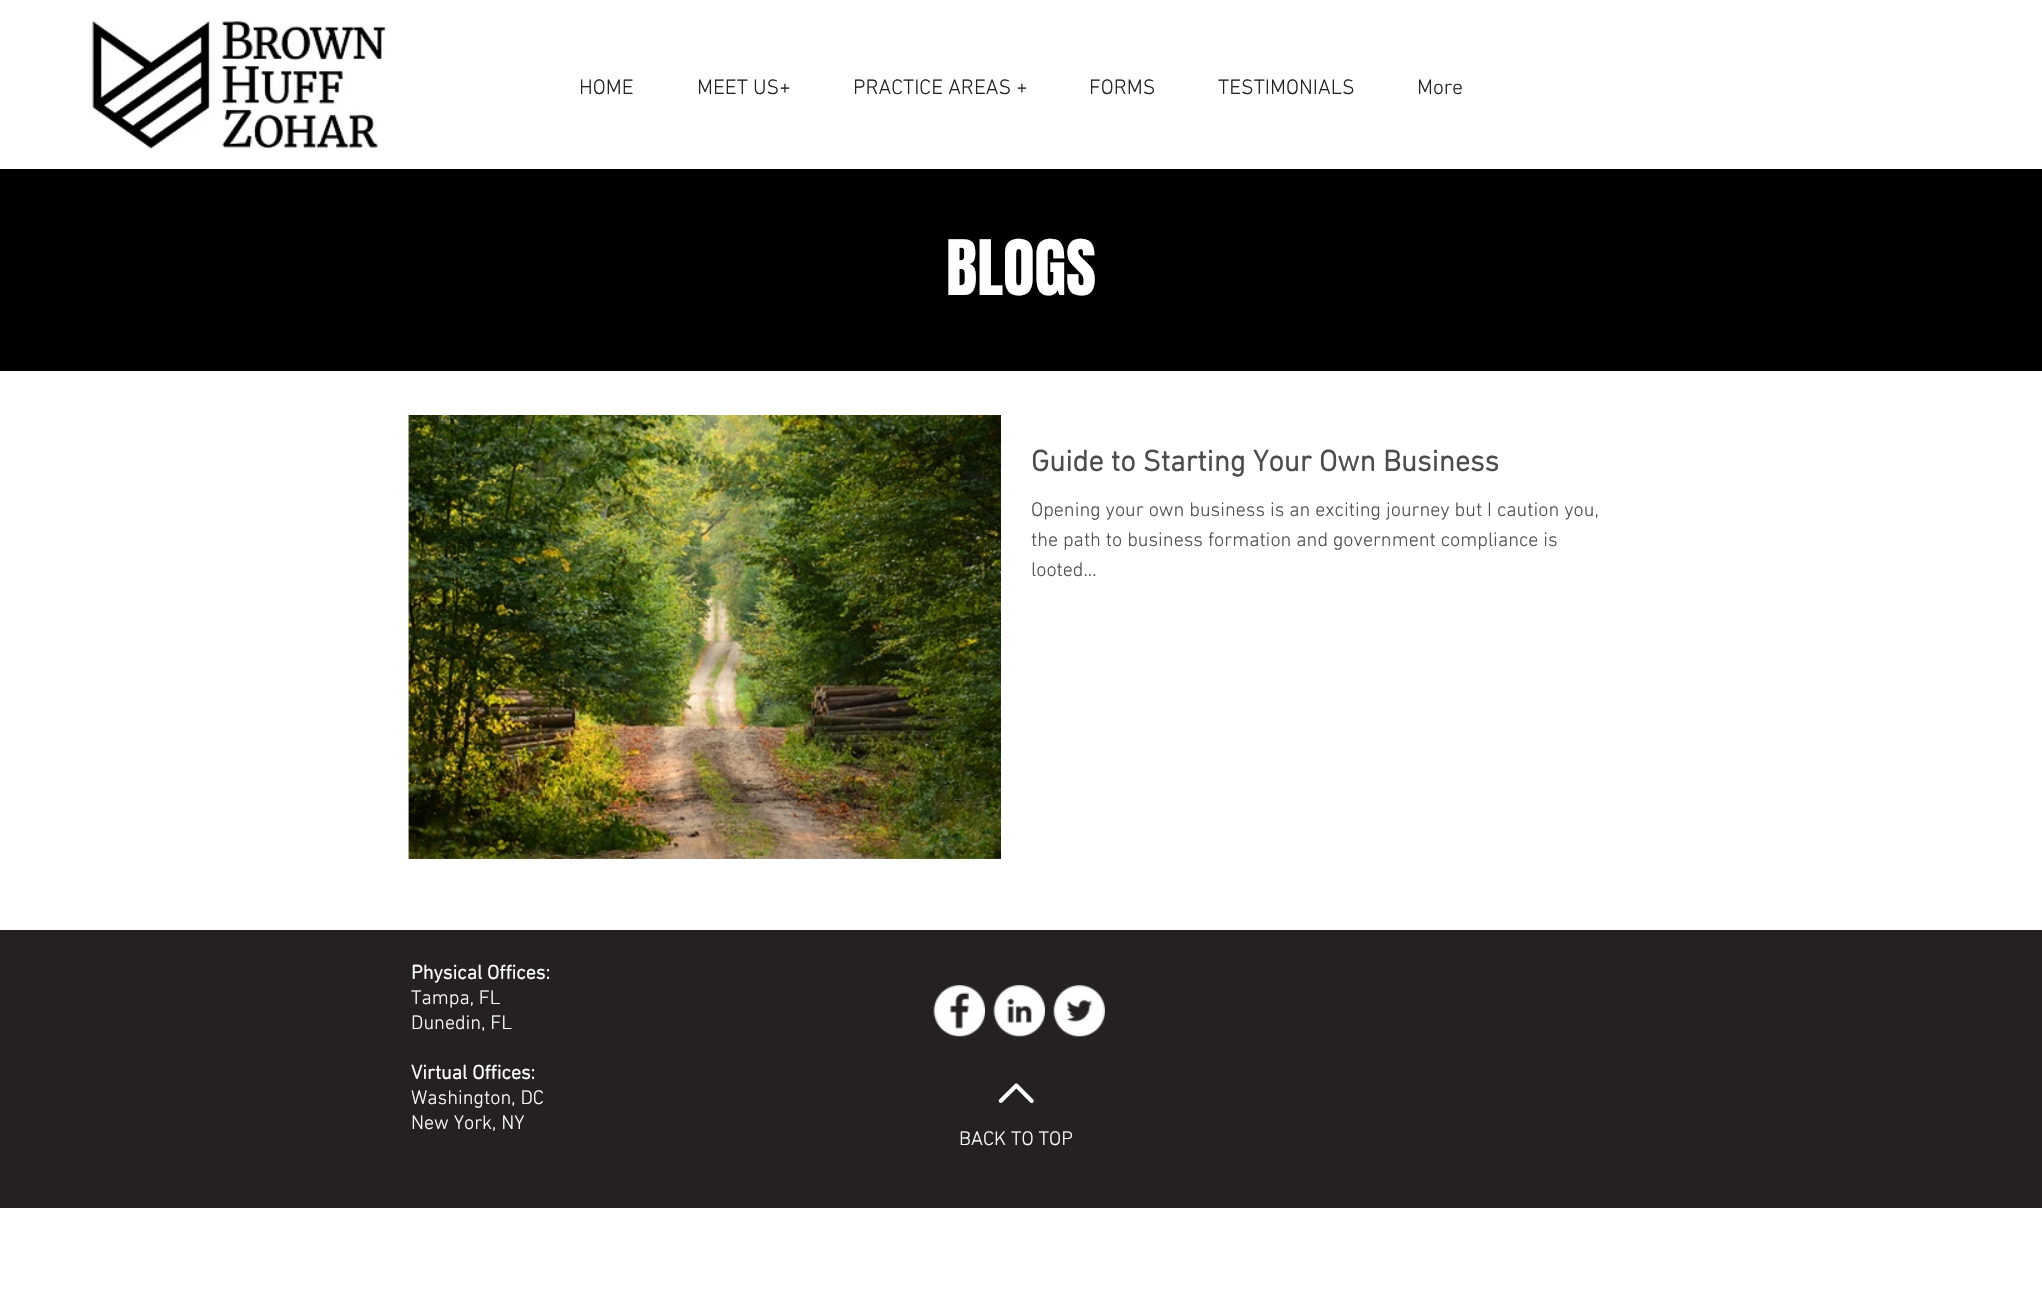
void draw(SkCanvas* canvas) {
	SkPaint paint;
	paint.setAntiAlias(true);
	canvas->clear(0xffffffff);
	canvas->drawImageRect(SkImages::DeferredFromEncodedData(SkData::MakeFromFileName("img1.png")), SkRect::MakeXYWH(89, 20, 298, 130), SkSamplingOptions());
	SkFont f1(fontMgr->matchFamilyStyle("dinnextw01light", SkFontStyle(300, SkFontStyle::kNormal_Width, SkFontStyle::kUpright_Slant)), 21.25);
	f1.setSubpixel(true);
	paint.setColor(0xff252122);
	canvas->drawString("HOME", 579, 94, f1, paint);
	canvas->drawString("MEET US+", 697, 94, f1, paint);
	canvas->drawString("PRACTICE AREAS +", 853, 94, f1, paint);
	canvas->drawString("FORMS", 1089, 94, f1, paint);
	canvas->drawString("TESTIMONIALS", 1218, 94, f1, paint);
	canvas->drawString("More", 1417, 94, f1, paint);
	paint.setColor(0xff000000);
	canvas->drawRect(SkRect::MakeXYWH(0, 169, 2042, 202), paint);
	SkFont f2(fontMgr->matchFamilyStyle("Anton", SkFontStyle::Normal()), 65);
	f2.setSubpixel(true);
	paint.setColor(0xffffffff);
	canvas->drawString("BLOGS", 946, 295, f2, paint);
	canvas->drawImageRect(SkImages::DeferredFromEncodedData(SkData::MakeFromFileName("img2.png")), SkRect::MakeXYWH(408, 415, 593, 444), SkSamplingOptions());
	canvas->drawImageRect(SkImages::DeferredFromEncodedData(SkData::MakeFromFileName("img3.png")), SkRect::MakeXYWH(408, 415, 593, 444), SkSamplingOptions());
	SkFont f3(fontMgr->matchFamilyStyle("dinnextw01light", SkFontStyle::Bold()), 30);
	f3.setSubpixel(true);
	paint.setColor(0xff4d4b4b);
	canvas->drawString("Guide to Starting Your Own Business", 1031, 471, f3, paint);
	SkFont f4(fontMgr->matchFamilyStyle("dinnextw01light", SkFontStyle(300, SkFontStyle::kNormal_Width, SkFontStyle::kUpright_Slant)), 20);
	f4.setSubpixel(true);
	canvas->drawString("Opening your own business is an exciting journey but I caution you,", 1031, 516, f4, paint);
	canvas->drawString("the path to business formation and government compliance is", 1031, 546, f4, paint);
	canvas->drawString("looted...", 1031, 576, f4, paint);
	paint.setColor(0xff252122);
	canvas->drawRect(SkRect::MakeXYWH(0, 930, 2042, 278), paint);
	SkFont f5(fontMgr->matchFamilyStyle("dinnextw01light", SkFontStyle::Bold()), 20);
	f5.setSubpixel(true);
	paint.setColor(0xffffffff);
	canvas->drawString("Physical Offices:", 411, 979, f5, paint);
	canvas->drawString("Tampa, FL", 411, 1004, f4, paint);
	canvas->drawString("Dunedin, FL", 411, 1029, f4, paint);
	canvas->drawString("Virtual Offices:", 411, 1079, f5, paint);
	canvas->drawString("Washington, DC", 411, 1104, f4, paint);
	canvas->drawString("New York, NY", 411, 1129, f4, paint);
	canvas->drawImageRect(SkImages::DeferredFromEncodedData(SkData::MakeFromFileName("img4.png")), SkRect::MakeXYWH(933, 985, 52, 52), SkSamplingOptions());
	canvas->drawImageRect(SkImages::DeferredFromEncodedData(SkData::MakeFromFileName("img5.png")), SkRect::MakeXYWH(993, 985, 52, 52), SkSamplingOptions());
	canvas->drawImageRect(SkImages::DeferredFromEncodedData(SkData::MakeFromFileName("img6.png")), SkRect::MakeXYWH(1053, 985, 52, 52), SkSamplingOptions());
	canvas->drawImageRect(SkImages::DeferredFromEncodedData(SkData::MakeFromFileName("img7.png")), SkRect::MakeXYWH(998, 1083, 36, 20), SkSamplingOptions());
	canvas->drawString("BACK TO TOP", 959, 1145, f4, paint);
}
